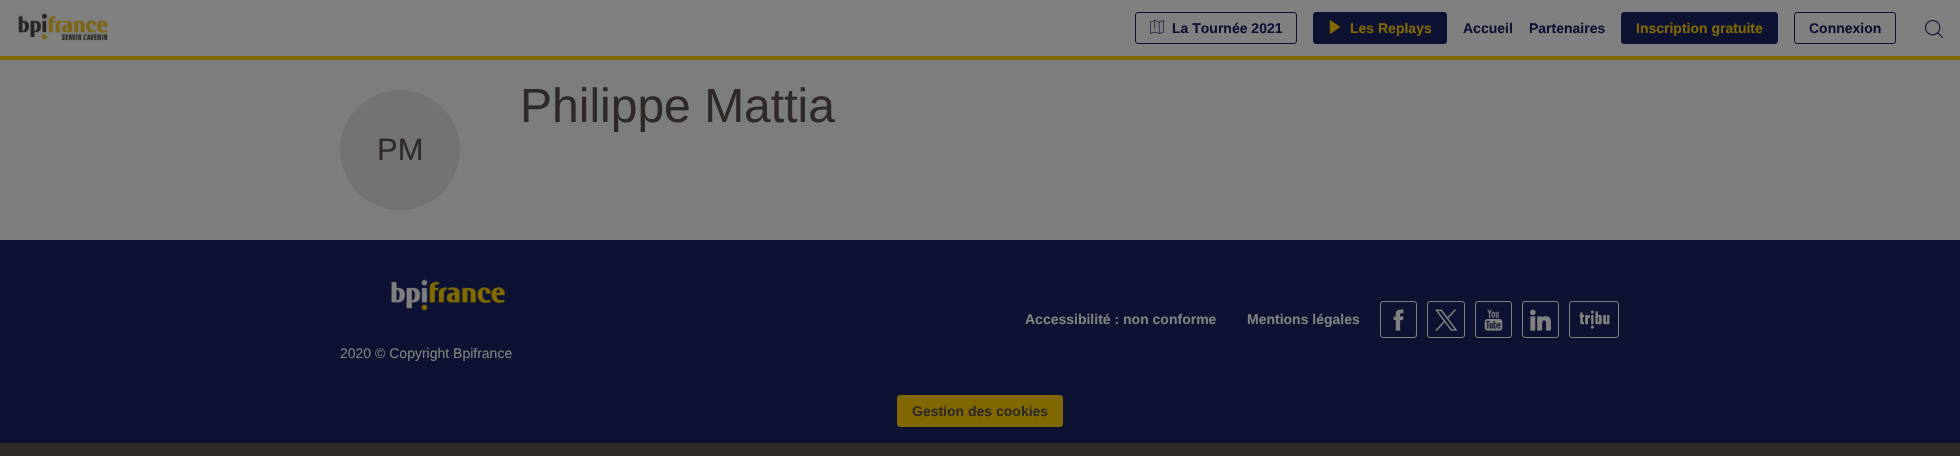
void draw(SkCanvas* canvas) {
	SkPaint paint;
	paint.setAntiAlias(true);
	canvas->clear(0xff2f2927);
	paint.setColor(0xff808080);
	canvas->drawRect(SkRect::MakeXYWH(0, 0, 1960, 56), paint);
	paint.setColor(0xff806700);
	canvas->drawRect(SkRect::MakeXYWH(0, 56, 1960, 4), paint);
	canvas->drawImageRect(SkImages::DeferredFromEncodedData(SkData::MakeFromFileName("img1.png")), SkRect::MakeXYWH(18, 13, 91, 28), SkSamplingOptions());
	paint.setStroke(true);
	paint.setStrokeWidth(1);
	paint.setColor(0xff0e1232);
	canvas->drawRoundRect(SkRect::MakeXYWH(1135.5, 12.5, 161, 31), 2.5, 2.5, paint);
	canvas->drawImageRect(SkImages::DeferredFromEncodedData(SkData::MakeFromFileName("img2.png")), SkRect::MakeXYWH(1150, 20, 14, 14), SkSamplingOptions());
	SkFont f1(fontMgr->matchFamilyStyle("Liberation Sans", SkFontStyle::Bold()), 14);
	f1.setSubpixel(true);
	paint.setStroke(false);
	canvas->drawString("La Tournée 2021", 1172, 33, f1, paint);
	canvas->drawRoundRect(SkRect::MakeXYWH(1313.5, 12.5, 133, 31), 2.5, 2.5, paint);
	paint.setStroke(true);
	canvas->drawRoundRect(SkRect::MakeXYWH(1313.5, 12.5, 133, 31), 2.5, 2.5, paint);
	canvas->drawImageRect(SkImages::DeferredFromEncodedData(SkData::MakeFromFileName("img3.png")), SkRect::MakeXYWH(1329, 20, 12, 14), SkSamplingOptions());
	paint.setStroke(false);
	paint.setColor(0xff806700);
	canvas->drawString("Les Replays", 1350, 33, f1, paint);
	paint.setColor(0xff0e1232);
	canvas->drawString("Accueil", 1463, 33, f1, paint);
	canvas->drawString("Partenaires", 1529, 33, f1, paint);
	canvas->drawRoundRect(SkRect::MakeXYWH(1621.5, 12.5, 156, 31), 2.5, 2.5, paint);
	paint.setStroke(true);
	canvas->drawRoundRect(SkRect::MakeXYWH(1621.5, 12.5, 156, 31), 2.5, 2.5, paint);
	paint.setStroke(false);
	paint.setColor(0xff806700);
	canvas->drawString("Inscription gratuite", 1636, 33, f1, paint);
	paint.setStroke(true);
	paint.setColor(0xff0e1232);
	canvas->drawRoundRect(SkRect::MakeXYWH(1794.5, 12.5, 101, 31), 2.5, 2.5, paint);
	paint.setStroke(false);
	canvas->drawString("Connexion", 1809, 33, f1, paint);
	canvas->drawImageRect(SkImages::DeferredFromEncodedData(SkData::MakeFromFileName("img4.png")), SkRect::MakeXYWH(1925, 20, 18, 18), SkSamplingOptions());
	paint.setColor(0xff7d7d7d);
	canvas->drawRect(SkRect::MakeXYWH(0, 60, 1960, 180), paint);
	SkFont f2(fontMgr->matchFamilyStyle("Liberation Sans", SkFontStyle::Normal()), 48);
	f2.setSubpixel(true);
	paint.setColor(0xff2f2927);
	canvas->drawString("Philippe Mattia", 520, 122, f2, paint);
	paint.setColor(0xff737373);
	canvas->drawCircle(400, 150, 60, paint);
	SkFont f3(fontMgr->matchFamilyStyle("Liberation Sans", SkFontStyle::Normal()), 31);
	f3.setSubpixel(true);
	paint.setColor(0xff2f2927);
	canvas->drawString("PM", 377, 160, f3, paint);
	paint.setColor(0xff0e1232);
	canvas->drawRect(SkRect::MakeXYWH(0, 240, 1960, 203), paint);
	paint.setColor(0xff808080);
	canvas->drawString("Accessibilité : non conforme", 1025, 324, f1, paint);
	canvas->drawString("Mentions légales", 1247, 324, f1, paint);
	paint.setStroke(true);
	canvas->drawRoundRect(SkRect::MakeXYWH(1380.5, 301.5, 36, 36), 2.5, 2.5, paint);
	canvas->drawImageRect(SkImages::DeferredFromEncodedData(SkData::MakeFromFileName("img5.png")), SkRect::MakeXYWH(1393, 309, 11, 22), SkSamplingOptions());
	canvas->drawRoundRect(SkRect::MakeXYWH(1427.5, 301.5, 37, 36), 2.5, 2.5, paint);
	canvas->drawImageRect(SkImages::DeferredFromEncodedData(SkData::MakeFromFileName("img6.png")), SkRect::MakeXYWH(1435, 309, 23, 22), SkSamplingOptions());
	canvas->drawRoundRect(SkRect::MakeXYWH(1475.5, 301.5, 36, 36), 2.5, 2.5, paint);
	canvas->drawImageRect(SkImages::DeferredFromEncodedData(SkData::MakeFromFileName("img7.png")), SkRect::MakeXYWH(1484, 309, 19, 22), SkSamplingOptions());
	canvas->drawRoundRect(SkRect::MakeXYWH(1522.5, 301.5, 36, 36), 2.5, 2.5, paint);
	canvas->drawImageRect(SkImages::DeferredFromEncodedData(SkData::MakeFromFileName("img8.png")), SkRect::MakeXYWH(1530, 309, 21, 22), SkSamplingOptions());
	canvas->drawRoundRect(SkRect::MakeXYWH(1569.5, 301.5, 49, 36), 2.5, 2.5, paint);
	canvas->drawImageRect(SkImages::DeferredFromEncodedData(SkData::MakeFromFileName("img9.png")), SkRect::MakeXYWH(1579, 310, 31, 19), SkSamplingOptions());
	canvas->drawImageRect(SkImages::DeferredFromEncodedData(SkData::MakeFromFileName("img10.png")), SkRect::MakeXYWH(391, 279, 115, 32), SkSamplingOptions());
	SkFont f4(fontMgr->matchFamilyStyle("Liberation Sans", SkFontStyle::Normal()), 14);
	f4.setSubpixel(true);
	paint.setStroke(false);
	canvas->drawString("2020 © Copyright Bpifrance", 340, 358, f4, paint);
	paint.setColor(0xff806700);
	canvas->drawRoundRect(SkRect::MakeXYWH(897.5, 395.5, 165, 31), 2.5, 2.5, paint);
	paint.setStroke(true);
	canvas->drawRoundRect(SkRect::MakeXYWH(897.5, 395.5, 165, 31), 2.5, 2.5, paint);
	paint.setStroke(false);
	paint.setColor(0xff2f2927);
	canvas->drawString("Gestion des cookies", 912, 416, f1, paint);
}
